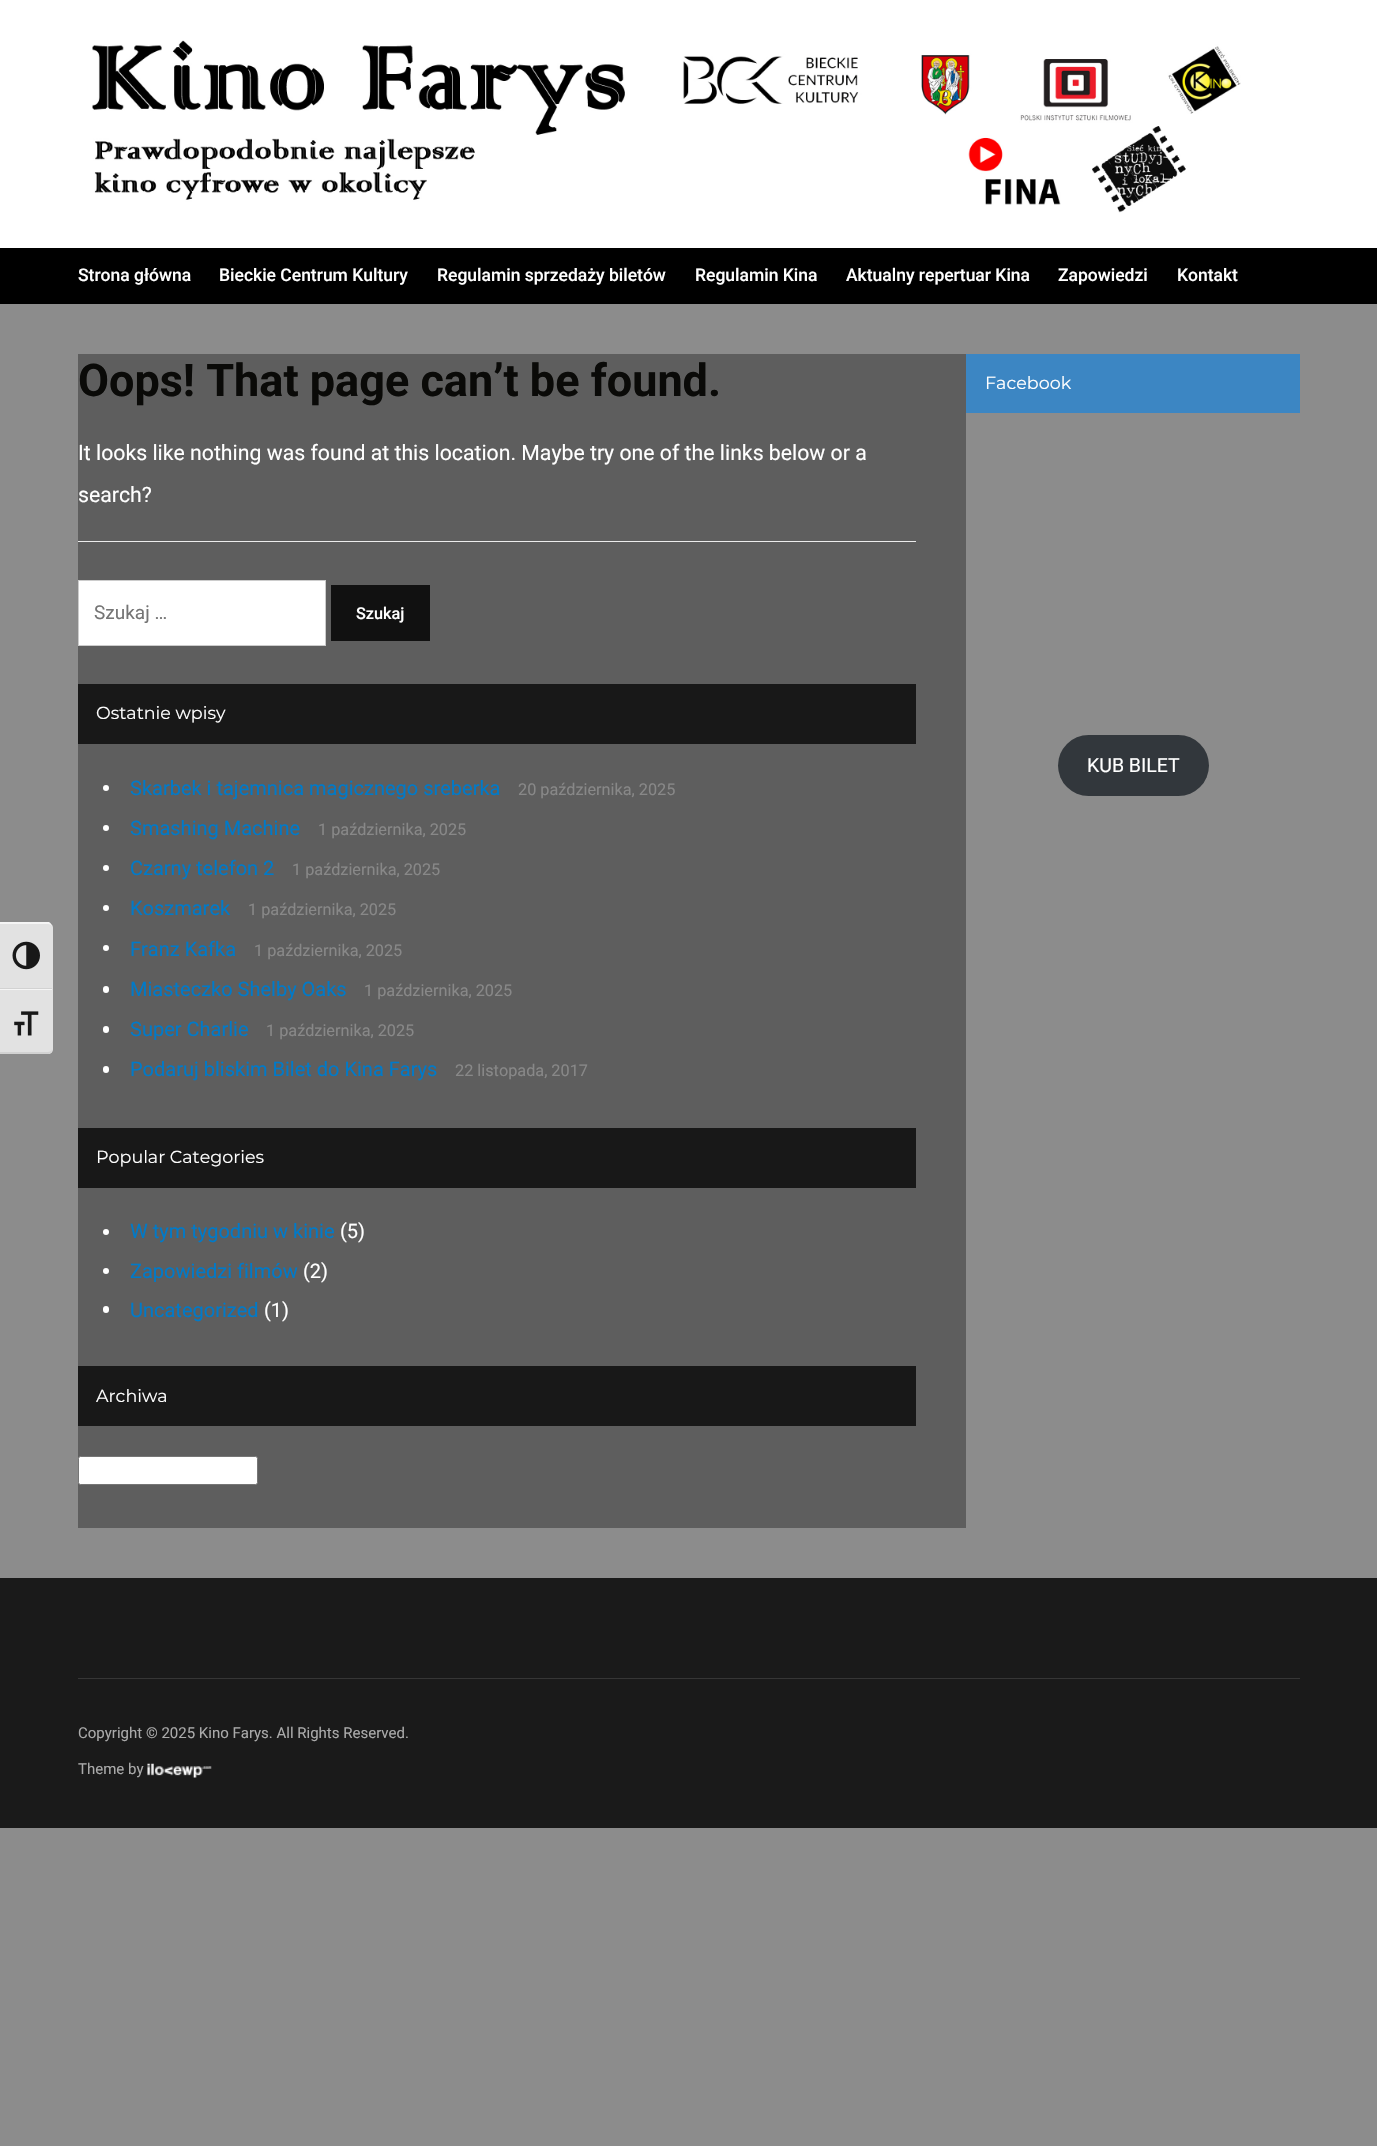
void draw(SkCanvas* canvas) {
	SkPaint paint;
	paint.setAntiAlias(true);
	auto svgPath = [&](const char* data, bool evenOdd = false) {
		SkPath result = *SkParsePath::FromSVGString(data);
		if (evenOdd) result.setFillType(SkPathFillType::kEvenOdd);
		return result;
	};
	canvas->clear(0xff8c8c8c);
	paint.setColor(0xffe2e2e2);
	canvas->drawPath(svgPath("M0 923H48C51 923 53 925 53 928V989H0Z"), paint);
	paint.setColor(0xfff5f5f5);
	canvas->drawPath(svgPath("M0 924H48C50 924 52 925 52 928C52 926 51 923 49 922H0Z"), paint);
	paint.setColor(0xffd2d2d2);
	canvas->drawRect(SkRect::MakeXYWH(0, 988, 52, 1), paint);
	canvas->drawImageRect(SkImages::DeferredFromEncodedData(SkData::MakeFromFileName("img1.png")), SkRect::MakeXYWH(12, 941, 28, 29), SkSamplingOptions());
	paint.setColor(0xffe2e2e2);
	canvas->drawPath(svgPath("M0 989H53V1049C53 1052 51 1054 48 1054H0Z"), paint);
	paint.setColor(0xfff5f5f5);
	canvas->drawRect(SkRect::MakeXYWH(0, 989, 52, 1), paint);
	paint.setColor(0xffd2d2d2);
	canvas->drawPath(svgPath("M49 1054C51 1053 52 1051 52 1049C52 1051 50 1052 48 1052H0V1054Z"), paint);
	canvas->drawImageRect(SkImages::DeferredFromEncodedData(SkData::MakeFromFileName("img2.png")), SkRect::MakeXYWH(14, 1011, 25, 25), SkSamplingOptions());
	paint.setColor(0xffffffff);
	canvas->drawRect(SkRect::MakeXYWH(0, 0, 1377, 248), paint);
	canvas->drawImageRect(SkImages::DeferredFromEncodedData(SkData::MakeFromFileName("img3.png")), SkRect::MakeXYWH(92, 40, 1149, 173), SkSamplingOptions());
	paint.setColor(0xff000000);
	canvas->drawRect(SkRect::MakeXYWH(0, 248, 1377, 56), paint);
	SkFont f1(fontMgr->matchFamilyStyle("Roboto", SkFontStyle(500, SkFontStyle::kNormal_Width, SkFontStyle::kUpright_Slant)), 17.5);
	f1.setSubpixel(true);
	paint.setColor(0xffffffff);
	canvas->drawString("Strona główna", 78, 281, f1, paint);
	canvas->drawString("Bieckie Centrum Kultury", 219, 281, f1, paint);
	canvas->drawString("Regulamin sprzedaży biletów", 437, 281, f1, paint);
	canvas->drawString("Regulamin Kina", 695, 281, f1, paint);
	canvas->drawString("Aktualny repertuar Kina", 846, 281, f1, paint);
	canvas->drawString("Zapowiedzi", 1058, 281, f1, paint);
	canvas->drawString("Kontakt", 1177, 281, f1, paint);
	paint.setColor(0xff5e5e5e);
	canvas->drawRect(SkRect::MakeXYWH(78, 354, 888, 1174), paint);
	SkFont f2(fontMgr->matchFamilyStyle("Roboto", SkFontStyle::Bold()), 45);
	f2.setSubpixel(true);
	paint.setColor(0xff0a0a08);
	canvas->drawString("Oops! That page can’t be found.", 78, 396, f2, paint);
	paint.setColor(0xffececec);
	canvas->drawRect(SkRect::MakeXYWH(78, 541, 838, 1), paint);
	SkFont f3(fontMgr->matchFamilyStyle("Roboto", SkFontStyle::Normal()), 21.25);
	f3.setSubpixel(true);
	paint.setColor(0xffffffff);
	canvas->drawString("It looks like nothing was found at this location. Maybe try one of the links below or a", 78, 460, f3, paint);
	canvas->drawString("search?", 78, 502, f3, paint);
	canvas->drawRect(SkRect::MakeXYWH(78.5, 580.5, 247, 65), paint);
	paint.setStroke(true);
	paint.setStrokeWidth(1);
	paint.setColor(0xffcccccc);
	canvas->drawRect(SkRect::MakeXYWH(78.5, 580.5, 247, 65), paint);
	SkFont f4(fontMgr->matchFamilyStyle("Roboto", SkFontStyle::Normal()), 19);
	f4.setSubpixel(true);
	paint.setStroke(false);
	paint.setColor(0xff757575);
	canvas->drawString("Szukaj …", 94, 619, f4, paint);
	paint.setColor(0xff111111);
	canvas->drawRect(SkRect::MakeXYWH(331, 585, 99, 56), paint);
	SkFont f5(fontMgr->matchFamilyStyle("Roboto", SkFontStyle(500, SkFontStyle::kNormal_Width, SkFontStyle::kUpright_Slant)), 16.25);
	f5.setSubpixel(true);
	paint.setColor(0xffffffff);
	canvas->drawString("Szukaj", 356, 619, f5, paint);
	paint.setColor(0xff181818);
	canvas->drawRect(SkRect::MakeXYWH(78, 684, 838, 60), paint);
	SkFont f6(fontMgr->matchFamilyStyle("Montserrat", SkFontStyle::Normal()), 17.5);
	f6.setSubpixel(true);
	paint.setColor(0xffffffff);
	canvas->drawString("Ostatnie wpisy", 96, 719, f6, paint);
	canvas->drawCircle(106, 788, 3, paint);
	SkFont f7(fontMgr->matchFamilyStyle("Roboto", SkFontStyle::Normal()), 20);
	f7.setSubpixel(true);
	paint.setColor(0xff007ac9);
	canvas->drawString("Skarbek i tajemnica magicznego sreberka", 130, 795, f7, paint);
	SkFont f8(fontMgr->matchFamilyStyle("Roboto", SkFontStyle::Normal()), 16.25);
	f8.setSubpixel(true);
	paint.setColor(0xff888888);
	canvas->drawString("20 października, 2025", 518, 795, f8, paint);
	paint.setColor(0xffffffff);
	canvas->drawCircle(106, 828, 3, paint);
	paint.setColor(0xff007ac9);
	canvas->drawString("Smashing Machine", 130, 835, f7, paint);
	paint.setColor(0xff888888);
	canvas->drawString("1 października, 2025", 318, 835, f8, paint);
	paint.setColor(0xffffffff);
	canvas->drawCircle(106, 868, 3, paint);
	paint.setColor(0xff007ac9);
	canvas->drawString("Czarny telefon 2", 130, 875, f7, paint);
	paint.setColor(0xff888888);
	canvas->drawString("1 października, 2025", 292, 875, f8, paint);
	paint.setColor(0xffffffff);
	canvas->drawCircle(106, 908, 3, paint);
	paint.setColor(0xff007ac9);
	canvas->drawString("Koszmarek", 130, 915, f7, paint);
	paint.setColor(0xff888888);
	canvas->drawString("1 października, 2025", 248, 915, f8, paint);
	paint.setColor(0xffffffff);
	canvas->drawCircle(106, 948, 3, paint);
	paint.setColor(0xff007ac9);
	canvas->drawString("Franz Kafka", 130, 956, f7, paint);
	paint.setColor(0xff888888);
	canvas->drawString("1 października, 2025", 254, 956, f8, paint);
	paint.setColor(0xffffffff);
	canvas->drawRoundRect(SkRect::MakeXYWH(103, 986, 6, 7), 3, 3, paint);
	paint.setColor(0xff007ac9);
	canvas->drawString("Miasteczko Shelby Oaks", 130, 996, f7, paint);
	paint.setColor(0xff888888);
	canvas->drawString("1 października, 2025", 364, 996, f8, paint);
	paint.setColor(0xffffffff);
	canvas->drawRoundRect(SkRect::MakeXYWH(103, 1026, 6, 7), 3, 3, paint);
	paint.setColor(0xff007ac9);
	canvas->drawString("Super Charlie", 130, 1036, f7, paint);
	paint.setColor(0xff888888);
	canvas->drawString("1 października, 2025", 266, 1036, f8, paint);
	paint.setColor(0xffffffff);
	canvas->drawRoundRect(SkRect::MakeXYWH(103, 1066, 6, 7), 3, 3, paint);
	paint.setColor(0xff007ac9);
	canvas->drawString("Podaruj bliskim Bilet do Kina Farys", 130, 1076, f7, paint);
	paint.setColor(0xff888888);
	canvas->drawString("22 listopada, 2017", 455, 1076, f8, paint);
	paint.setColor(0xff181818);
	canvas->drawRect(SkRect::MakeXYWH(78, 1128, 838, 60), paint);
	paint.setColor(0xffffffff);
	canvas->drawString("Popular Categories", 96, 1163, f6, paint);
	canvas->drawCircle(106, 1232, 3, paint);
	paint.setColor(0xff007ac9);
	canvas->drawString("W tym tygodniu w kinie", 130, 1238, f7, paint);
	paint.setColor(0xffffffff);
	canvas->drawString("(5)", 340, 1238, f7, paint);
	canvas->drawCircle(106, 1271, 3, paint);
	paint.setColor(0xff007ac9);
	canvas->drawString("Zapowiedzi filmów", 130, 1278, f7, paint);
	paint.setColor(0xffffffff);
	canvas->drawString("(2)", 303, 1278, f7, paint);
	canvas->drawRoundRect(SkRect::MakeXYWH(103, 1306, 6, 7), 3, 3, paint);
	paint.setColor(0xff007ac9);
	canvas->drawString("Uncategorized", 130, 1317, f7, paint);
	paint.setColor(0xffffffff);
	canvas->drawString("(1)", 264, 1317, f7, paint);
	paint.setColor(0xff181818);
	canvas->drawRect(SkRect::MakeXYWH(78, 1366, 838, 60), paint);
	paint.setColor(0xffffffff);
	canvas->drawString("Archiwa", 96, 1402, f6, paint);
	canvas->drawRoundRect(SkRect::MakeXYWH(78.5, 1456.5, 179, 28), 2, 2, paint);
	paint.setStroke(true);
	paint.setColor(0xff767676);
	canvas->drawRoundRect(SkRect::MakeXYWH(78.5, 1456.5, 179, 28), 2, 2, paint);
	paint.setStroke(false);
	paint.setColor(0xff3c86c3);
	canvas->drawRect(SkRect::MakeXYWH(966, 354, 334, 59), paint);
	paint.setColor(0xffffffff);
	canvas->drawString("Facebook", 985, 389, f6, paint);
	paint.setColor(0xff32373c);
	canvas->drawRoundRect(SkRect::MakeXYWH(1058, 735, 151, 61), 30.5, 30.5, paint);
	SkFont f9(fontMgr->matchFamilyStyle("Roboto", SkFontStyle::Normal()), 19.5);
	f9.setSubpixel(true);
	paint.setColor(0xffffffff);
	canvas->drawString("KUB BILET", 1087, 772, f9, paint);
	paint.setColor(0xff1a1a1a);
	canvas->drawRect(SkRect::MakeXYWH(0, 1578, 1377, 250), paint);
	paint.setColor(0xff363636);
	canvas->drawRect(SkRect::MakeXYWH(78, 1678, 1222, 1), paint);
	SkFont f10(fontMgr->matchFamilyStyle("Roboto", SkFontStyle::Normal()), 15);
	f10.setSubpixel(true);
	paint.setColor(0xffaaaaaa);
	canvas->drawString("Copyright © 2025 Kino Farys. All Rights Reserved.", 78, 1738, f10, paint);
	canvas->drawString("Theme by", 78, 1774, f10, paint);
	canvas->drawImageRect(SkImages::DeferredFromEncodedData(SkData::MakeFromFileName("img4.png")), SkRect::MakeXYWH(147, 1763, 65, 15), SkSamplingOptions());
}
